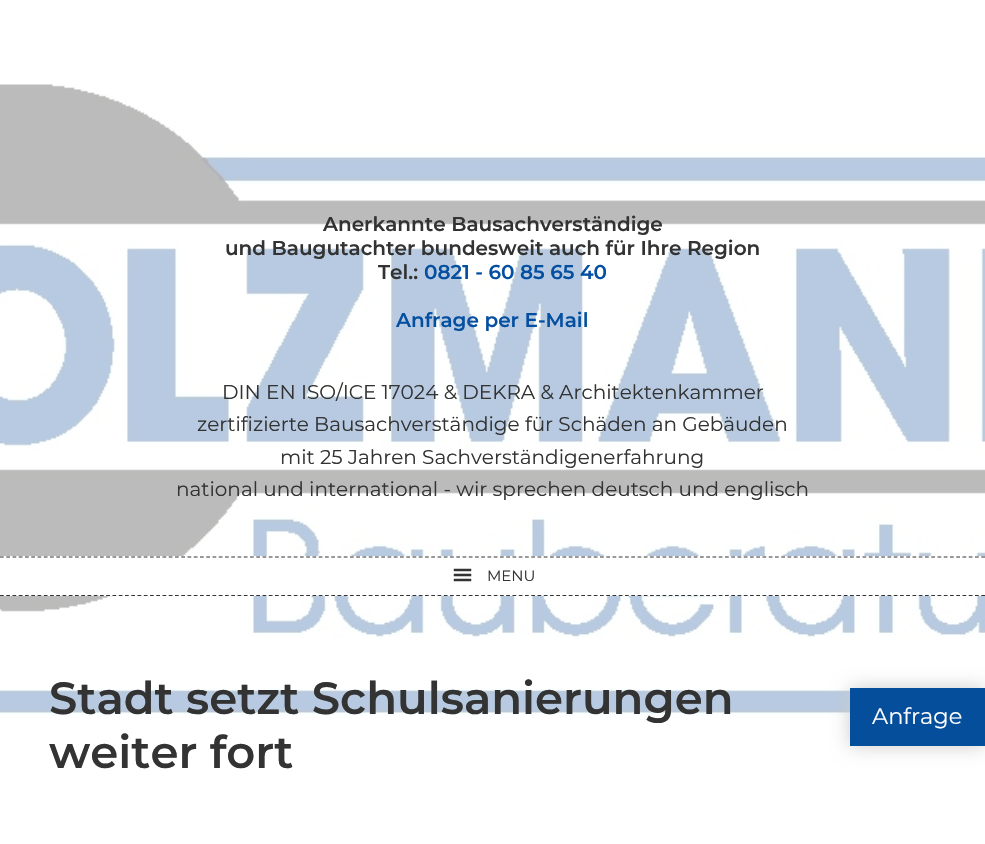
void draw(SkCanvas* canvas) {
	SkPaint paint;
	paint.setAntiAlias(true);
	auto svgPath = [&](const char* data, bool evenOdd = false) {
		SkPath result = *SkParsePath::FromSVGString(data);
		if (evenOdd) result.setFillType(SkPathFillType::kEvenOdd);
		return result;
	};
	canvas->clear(0xffffffff);
	canvas->drawImageRect(SkImages::DeferredFromEncodedData(SkData::MakeFromFileName("img1.png")), SkRect::MakeXYWH(0, 84, 985, 632), SkSamplingOptions());
	SkFont f1(fontMgr->matchFamilyStyle("Montserrat", SkFontStyle(600, SkFontStyle::kNormal_Width, SkFontStyle::kUpright_Slant)), 20);
	f1.setSubpixel(true);
	paint.setColor(0xff333333);
	canvas->drawString("Anerkannte Bausachverständige", 323, 231, f1, paint);
	canvas->drawString("und Baugutachter bundesweit auch für Ihre Region", 225, 255, f1, paint);
	canvas->drawString("Tel.:", 378, 279, f1, paint);
	paint.setColor(0xff044fa0);
	canvas->drawString("0821 - 60 85 65 40", 424, 279, f1, paint);
	canvas->drawString("Anfrage per E-Mail", 396, 327, f1, paint);
	SkFont f2(fontMgr->matchFamilyStyle("Montserrat", SkFontStyle::Normal()), 20);
	f2.setSubpixel(true);
	paint.setColor(0xff333333);
	canvas->drawString("DIN EN ISO/ICE 17024 & DEKRA & Architektenkammer", 222, 399, f2, paint);
	canvas->drawString("zertifizierte Bausachverständige für Schäden an Gebäuden", 197, 431, f2, paint);
	canvas->drawString("mit 25 Jahren Sachverständigenerfahrung", 280, 464, f2, paint);
	canvas->drawString("national und international - wir sprechen deutsch und englisch", 176, 496, f2, paint);
	paint.setColor(0xffffffff);
	canvas->drawRect(SkRect::MakeXYWH(0, 556, 985, 40), paint);
	paint.setStroke(true);
	paint.setStrokeWidth(1.2);
	paint.setColor(0xff333333);
	paint.setPathEffect(SkDashPathEffect::Make({{3.75f, 2.5f}}, 0));
	canvas->drawPath(svgPath("M0 557H985"), paint);
	paint.setPathEffect(nullptr);
	paint.setPathEffect(SkDashPathEffect::Make({{3.75f, 2.5f}}, 0));
	canvas->drawPath(svgPath("M0 595.5H985"), paint);
	paint.setPathEffect(nullptr);
	canvas->drawImageRect(SkImages::DeferredFromEncodedData(SkData::MakeFromFileName("img2.png")), SkRect::MakeXYWH(453, 568, 19, 14), SkSamplingOptions());
	SkFont f3(fontMgr->matchFamilyStyle("Montserrat", SkFontStyle::Normal()), 15);
	f3.setSubpixel(true);
	paint.setStroke(false);
	canvas->drawString("MENU", 487, 581, f3, paint);
	SkFont f4(fontMgr->matchFamilyStyle("Montserrat", SkFontStyle(600, SkFontStyle::kNormal_Width, SkFontStyle::kUpright_Slant)), 45);
	f4.setSubpixel(true);
	canvas->drawString("Stadt setzt Schulsanierungen", 49, 714, f4, paint);
	canvas->drawString("weiter fort", 49, 768, f4, paint);
	paint.setColor(0xffcccccc);
	paint.setMaskFilter(SkMaskFilter::MakeBlur(kNormal_SkBlurStyle, 9.5));
	canvas->drawRect(SkRect::MakeXYWH(850, 688, 135, 58), paint);
	paint.setMaskFilter(nullptr);
	paint.setColor(0xff044e9b);
	canvas->drawRect(SkRect::MakeXYWH(850, 688, 135, 58), paint);
	SkFont f5(fontMgr->matchFamilyStyle("Montserrat", SkFontStyle::Normal()), 22.5);
	f5.setSubpixel(true);
	paint.setColor(0xffffffff);
	canvas->drawString("Anfrage", 872, 724, f5, paint);
}
